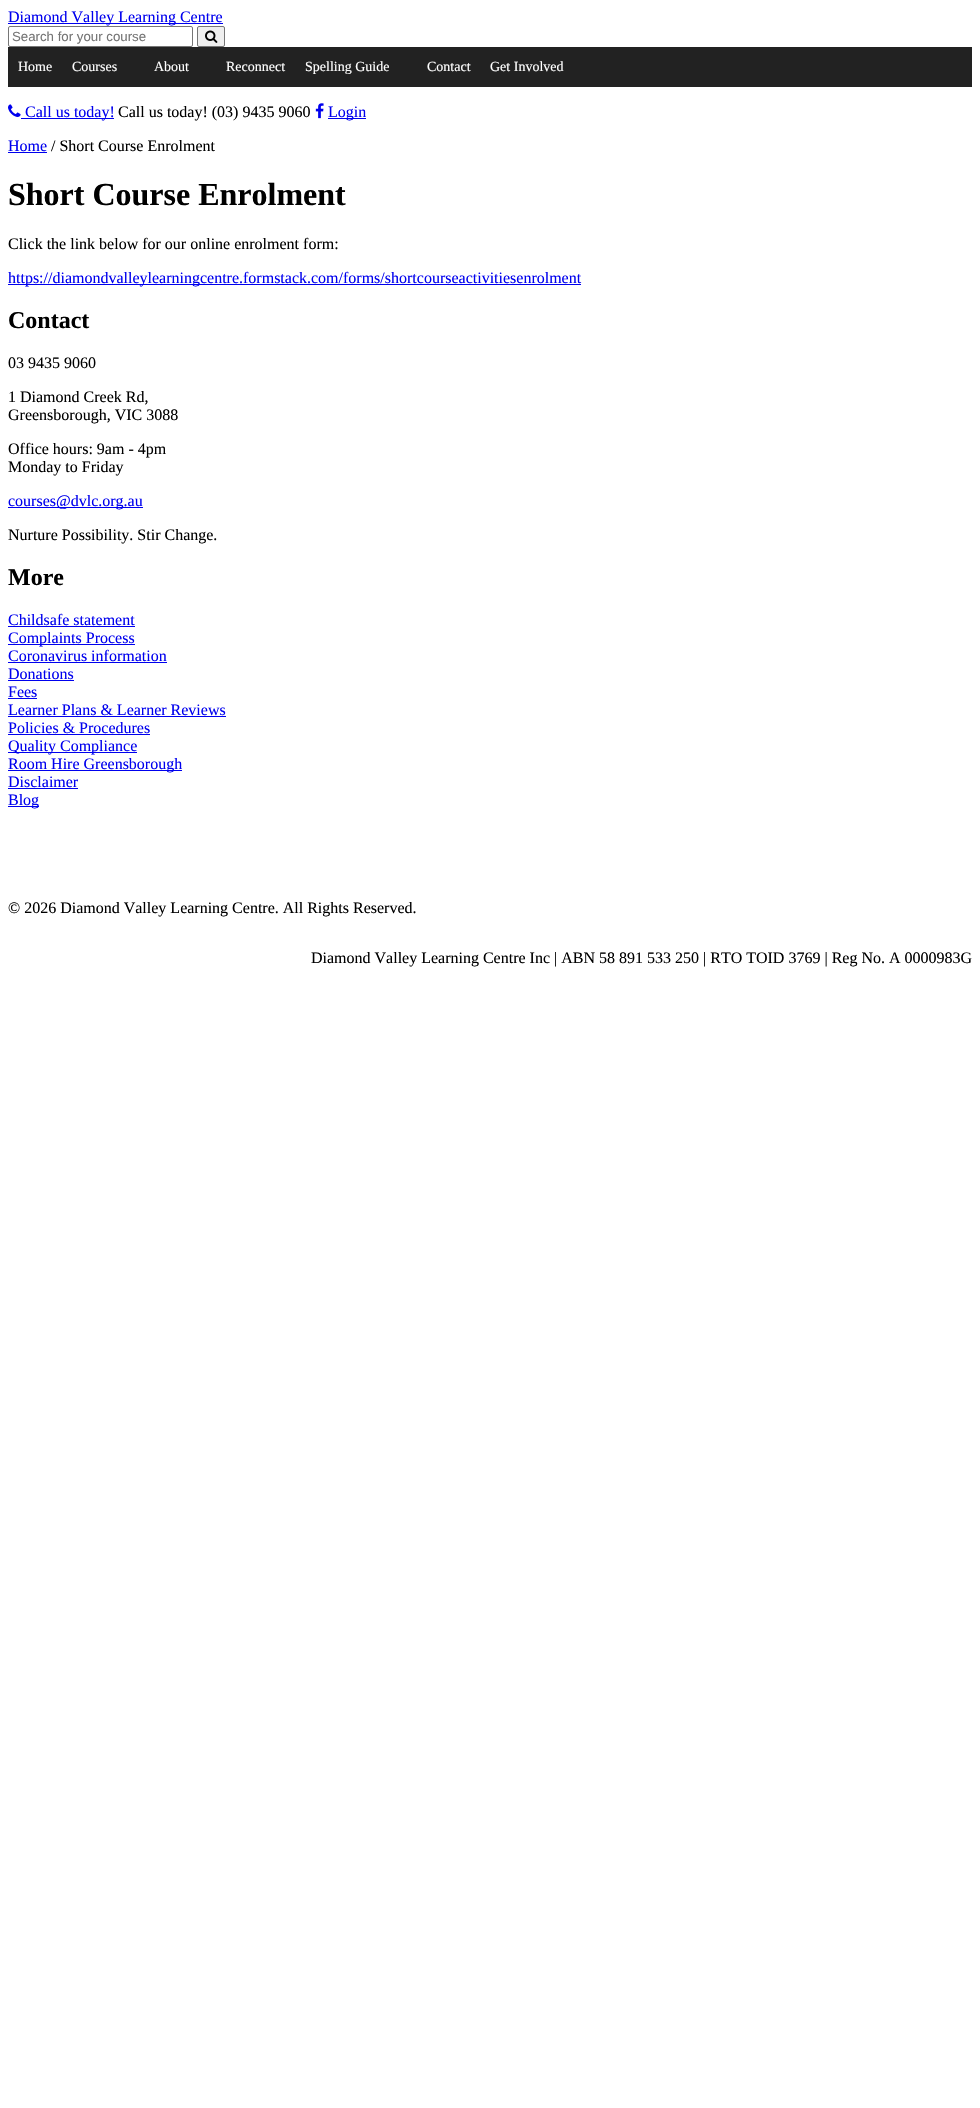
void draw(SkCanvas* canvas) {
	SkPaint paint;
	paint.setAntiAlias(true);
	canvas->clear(0xffffffff);
	paint.setColor(0xff0000ee);
	canvas->drawRect(SkRect::MakeXYWH(8, 23, 215, 1), paint);
	SkFont f1(fontMgr->matchFamilyStyle("Liberation Serif", SkFontStyle::Normal()), 16);
	f1.setSubpixel(true);
	canvas->drawString("Diamond Valley Learning Centre", 8, 22, f1, paint);
	paint.setStroke(true);
	paint.setStrokeWidth(1);
	paint.setColor(0xff767676);
	canvas->drawRoundRect(SkRect::MakeXYWH(8.5, 26.5, 184, 20), 1.5, 1.5, paint);
	SkFont f2(fontMgr->matchFamilyStyle("Liberation Sans", SkFontStyle::Normal()), 13.25);
	f2.setSubpixel(true);
	paint.setStroke(false);
	paint.setColor(0xff757575);
	canvas->drawString("Search for your course", 12, 41, f2, paint);
	paint.setColor(0xffefefef);
	canvas->drawRoundRect(SkRect::MakeXYWH(197.5, 26.5, 27, 20), 1.5, 1.5, paint);
	paint.setStroke(true);
	paint.setColor(0xff767676);
	canvas->drawRoundRect(SkRect::MakeXYWH(197.5, 26.5, 27, 20), 1.5, 1.5, paint);
	canvas->drawImageRect(SkImages::DeferredFromEncodedData(SkData::MakeFromFileName("img1.png")), SkRect::MakeXYWH(205, 30, 13, 13), SkSamplingOptions());
	paint.setStroke(false);
	paint.setColor(0xff222222);
	canvas->drawRect(SkRect::MakeXYWH(8, 47, 964, 40), paint);
	SkFont f3(fontMgr->matchFamilyStyle("Liberation Serif", SkFontStyle::Normal()), 14);
	f3.setSubpixel(true);
	paint.setColor(0xffffffff);
	canvas->drawString("Home", 18, 71, f3, paint);
	canvas->drawString("Courses", 72, 71, f3, paint);
	canvas->drawString("About", 154, 71, f3, paint);
	canvas->drawString("Reconnect", 226, 71, f3, paint);
	canvas->drawString("Spelling Guide", 305, 71, f3, paint);
	canvas->drawString("Contact", 427, 71, f3, paint);
	canvas->drawString("Get Involved", 490, 71, f3, paint);
	canvas->drawImageRect(SkImages::DeferredFromEncodedData(SkData::MakeFromFileName("img2.png")), SkRect::MakeXYWH(8, 104, 13, 13), SkSamplingOptions());
	paint.setColor(0xff0000ee);
	canvas->drawRect(SkRect::MakeXYWH(21, 118, 93, 1), paint);
	canvas->drawString("Call us today!", 25, 117, f1, paint);
	paint.setColor(0xff000000);
	canvas->drawString("Call us today! (03) 9435 9060", 118, 117, f1, paint);
	canvas->drawImageRect(SkImages::DeferredFromEncodedData(SkData::MakeFromFileName("img3.png")), SkRect::MakeXYWH(315, 103, 9, 16), SkSamplingOptions());
	paint.setColor(0xff0000ee);
	canvas->drawRect(SkRect::MakeXYWH(328, 118, 38, 1), paint);
	canvas->drawString("Login", 328, 117, f1, paint);
	canvas->drawString("Home", 8, 151, f1, paint);
	canvas->drawRect(SkRect::MakeXYWH(8, 152, 39, 1), paint);
	paint.setColor(0xff000000);
	canvas->drawString("/ Short Course Enrolment", 51, 151, f1, paint);
	SkFont f4(fontMgr->matchFamilyStyle("Liberation Serif", SkFontStyle::Bold()), 32);
	f4.setSubpixel(true);
	canvas->drawString("Short Course Enrolment", 8, 205, f4, paint);
	canvas->drawString("Click the link below for our online enrolment form:", 8, 249, f1, paint);
	paint.setColor(0xff0000ee);
	canvas->drawRect(SkRect::MakeXYWH(8, 284, 573, 1), paint);
	canvas->drawString("https://diamondvalleylearningcentre.formstack.com/forms/shortcourseactivitiesenrolment", 8, 283, f1, paint);
	SkFont f5(fontMgr->matchFamilyStyle("Liberation Serif", SkFontStyle::Bold()), 24);
	f5.setSubpixel(true);
	paint.setColor(0xff000000);
	canvas->drawString("Contact", 8, 328, f5, paint);
	canvas->drawString("03 9435 9060", 8, 368, f1, paint);
	canvas->drawString("1 Diamond Creek Rd,", 8, 402, f1, paint);
	canvas->drawString("Greensborough, VIC 3088", 8, 420, f1, paint);
	canvas->drawString("Office hours: 9am - 4pm", 8, 454, f1, paint);
	canvas->drawString("Monday to Friday", 8, 472, f1, paint);
	paint.setColor(0xff0000ee);
	canvas->drawRect(SkRect::MakeXYWH(8, 507, 135, 1), paint);
	canvas->drawString("courses@dvlc.org.au", 8, 506, f1, paint);
	paint.setColor(0xff000000);
	canvas->drawString("Nurture Possibility. Stir Change.", 8, 540, f1, paint);
	canvas->drawString("More", 8, 585, f5, paint);
	paint.setColor(0xff0000ee);
	canvas->drawString("Childsafe statement", 8, 625, f1, paint);
	canvas->drawRect(SkRect::MakeXYWH(8, 626, 127, 1), paint);
	canvas->drawRect(SkRect::MakeXYWH(8, 644, 127, 1), paint);
	canvas->drawString("Complaints Process", 8, 643, f1, paint);
	canvas->drawString("Coronavirus information", 8, 661, f1, paint);
	canvas->drawRect(SkRect::MakeXYWH(8, 662, 159, 1), paint);
	canvas->drawString("Donations", 8, 679, f1, paint);
	canvas->drawRect(SkRect::MakeXYWH(8, 680, 66, 1), paint);
	canvas->drawString("Fees", 8, 697, f1, paint);
	canvas->drawRect(SkRect::MakeXYWH(8, 698, 29, 1), paint);
	canvas->drawString("Learner Plans & Learner Reviews", 8, 715, f1, paint);
	canvas->drawRect(SkRect::MakeXYWH(8, 716, 218, 1), paint);
	canvas->drawString("Policies & Procedures", 8, 733, f1, paint);
	canvas->drawRect(SkRect::MakeXYWH(8, 734, 142, 1), paint);
	canvas->drawRect(SkRect::MakeXYWH(8, 752, 129, 1), paint);
	canvas->drawString("Quality Compliance", 8, 751, f1, paint);
	canvas->drawRect(SkRect::MakeXYWH(8, 770, 174, 1), paint);
	canvas->drawString("Room Hire Greensborough", 8, 769, f1, paint);
	canvas->drawString("Disclaimer", 8, 787, f1, paint);
	canvas->drawRect(SkRect::MakeXYWH(8, 788, 70, 1), paint);
	canvas->drawRect(SkRect::MakeXYWH(8, 806, 31, 1), paint);
	canvas->drawString("Blog", 8, 805, f1, paint);
	paint.setColor(0xff000000);
	canvas->drawString("© 2026 Diamond Valley Learning Centre. All Rights Reserved.", 8, 913, f1, paint);
	canvas->drawString("Diamond Valley Learning Centre Inc | ABN 58 891 533 250 | RTO TOID 3769 | Reg No. A 0000983G", 311, 963, f1, paint);
}
